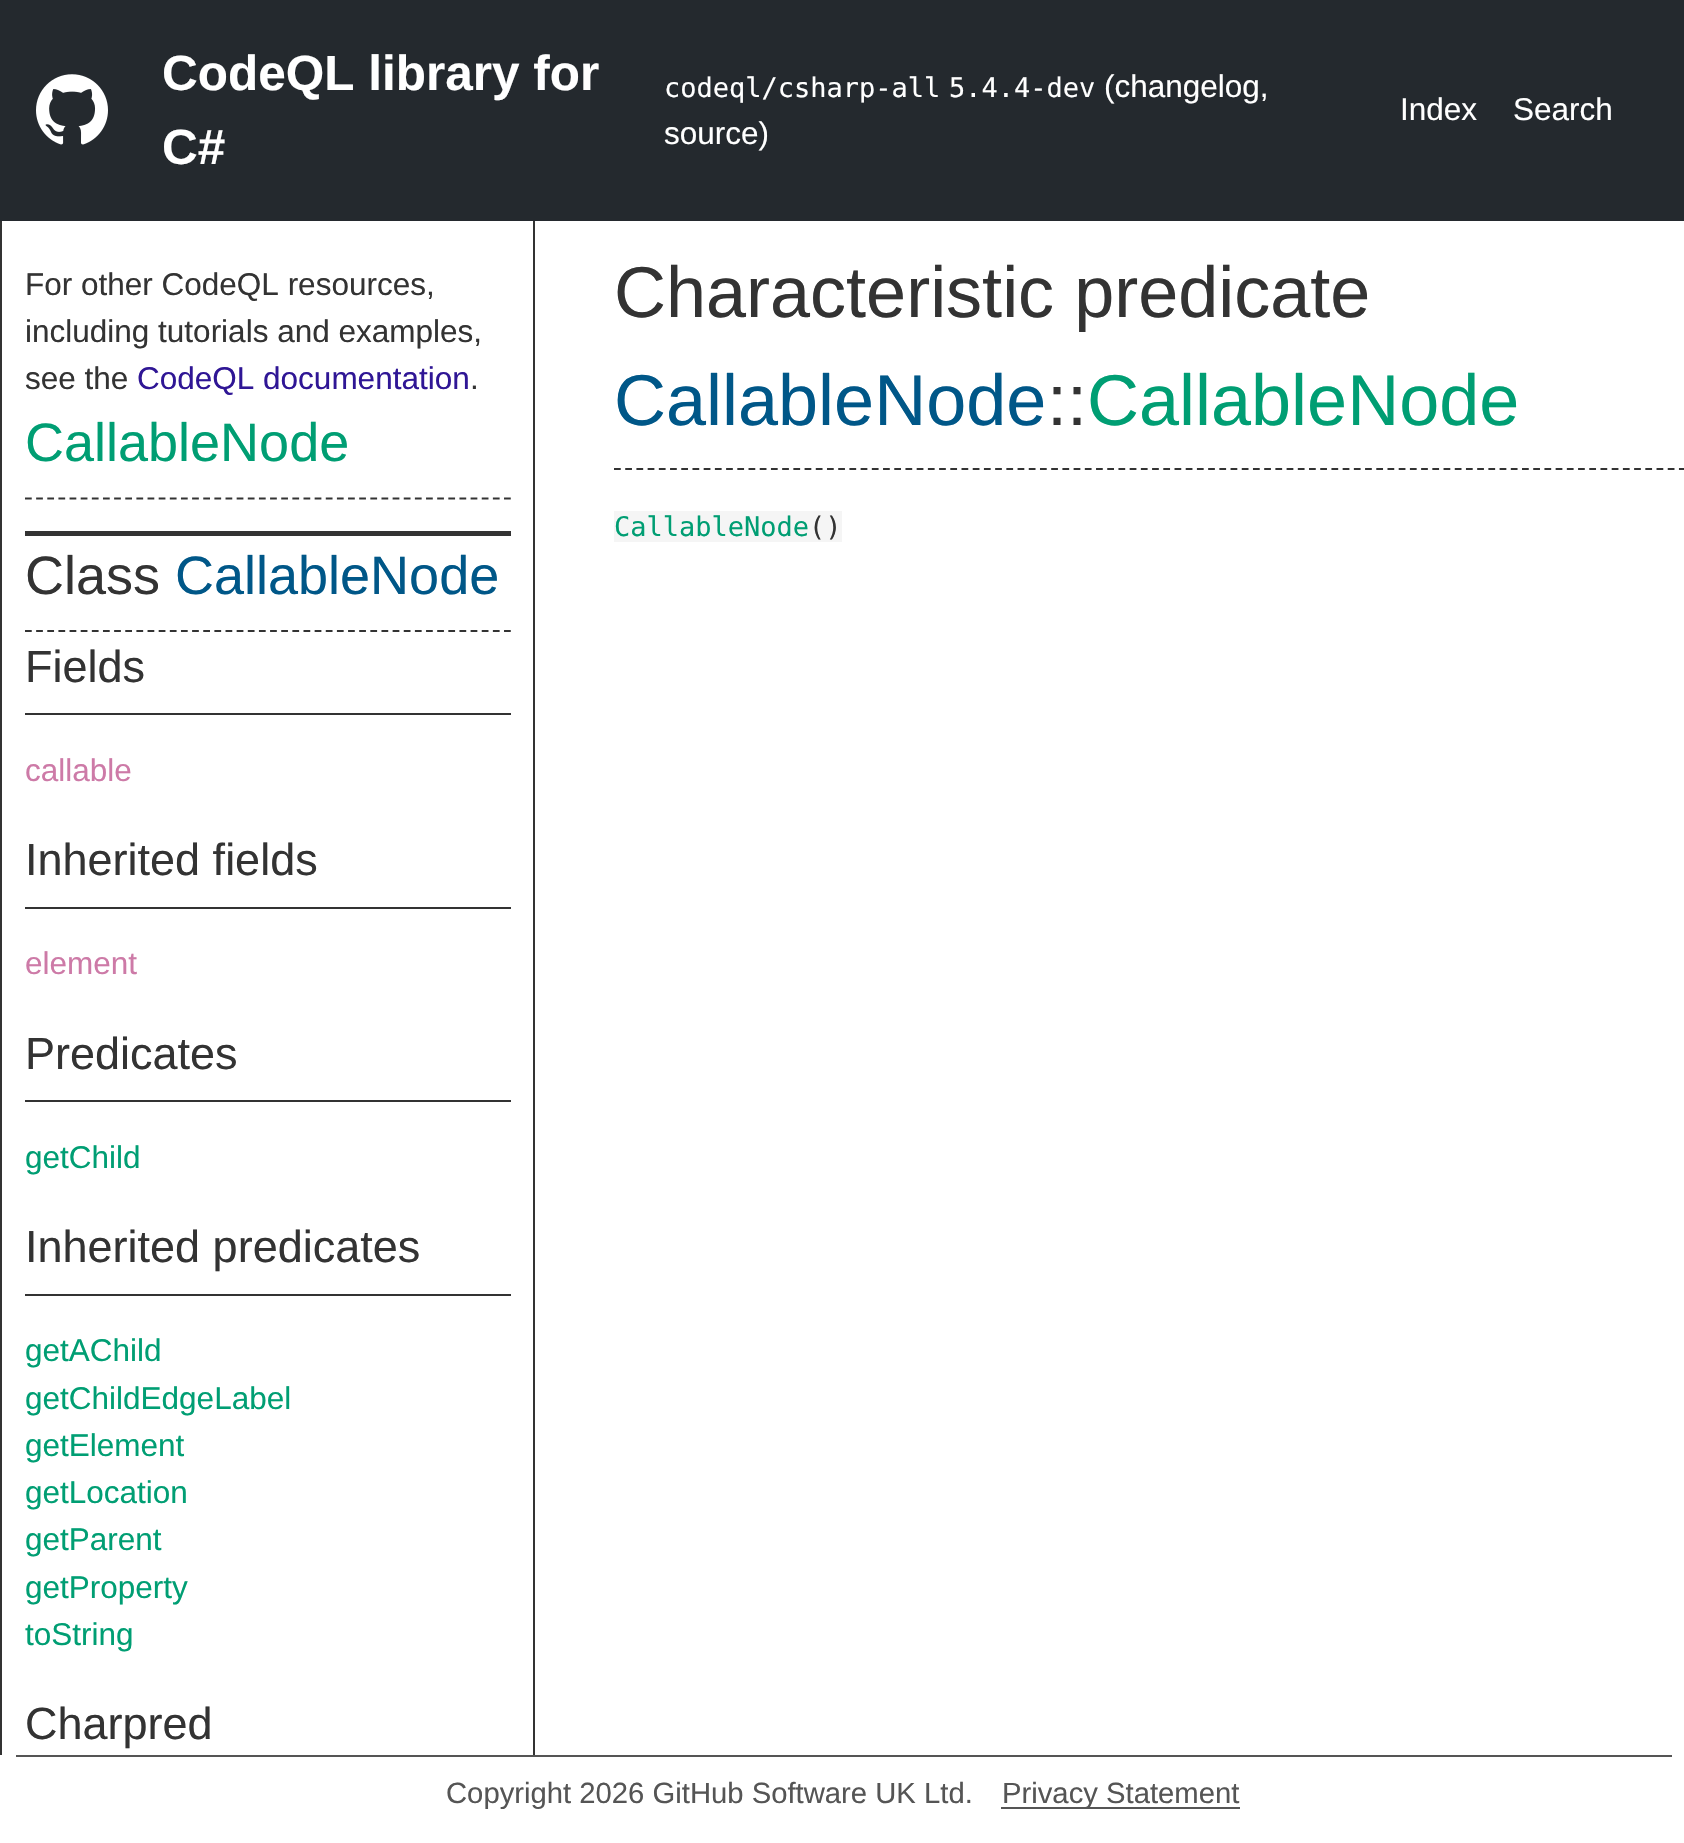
void draw(SkCanvas* canvas) {
	SkPaint paint;
	paint.setAntiAlias(true);
	auto svgPath = [&](const char* data, bool evenOdd = false) {
		SkPath result = *SkParsePath::FromSVGString(data);
		if (evenOdd) result.setFillType(SkPathFillType::kEvenOdd);
		return result;
	};
	canvas->clear(0xffffffff);
	paint.setColor(0xff24292e);
	canvas->drawRect(SkRect::MakeXYWH(0, 0, 1684, 221), paint);
	canvas->drawImageRect(SkImages::DeferredFromEncodedData(SkData::MakeFromFileName("img1.png")), SkRect::MakeXYWH(36, 74, 72, 71), SkSamplingOptions());
	SkFont f1(fontMgr->matchFamilyStyle("Liberation Sans", SkFontStyle::Bold()), 49.5);
	f1.setSubpixel(true);
	paint.setColor(0xffffffff);
	canvas->drawString("CodeQL library for", 162, 90, f1, paint);
	canvas->drawString("C#", 162, 164, f1, paint);
	SkFont f2(fontMgr->matchFamilyStyle("DejaVu Sans Mono", SkFontStyle::Normal()), 27);
	f2.setSubpixel(true);
	canvas->drawString("codeql/csharp-all", 664, 97, f2, paint);
	canvas->drawString("5.4.4-dev", 949, 97, f2, paint);
	SkFont f3(fontMgr->matchFamilyStyle("Liberation Sans", SkFontStyle::Normal()), 31.5);
	f3.setSubpixel(true);
	canvas->drawString("(changelog,", 1104, 97, f3, paint);
	canvas->drawString("source)", 664, 144, f3, paint);
	canvas->drawString("Index", 1400, 120, f3, paint);
	canvas->drawString("Search", 1513, 120, f3, paint);
	paint.setColor(0xff333333);
	canvas->drawRect(SkRect::MakeXYWH(533, 221, 2, 1534), paint);
	canvas->drawRect(SkRect::MakeXYWH(0, 221, 2, 1534), paint);
	canvas->drawRect(SkRect::MakeXYWH(25, 531, 486, 5), paint);
	canvas->drawString("For other CodeQL resources,", 25, 295, f3, paint);
	canvas->drawString("including tutorials and examples,", 25, 342, f3, paint);
	canvas->drawString("see the", 25, 389, f3, paint);
	paint.setColor(0xff2f1695);
	canvas->drawString("CodeQL documentation", 137, 389, f3, paint);
	paint.setColor(0xff333333);
	canvas->drawString(".", 470, 389, f3, paint);
	paint.setStroke(true);
	paint.setStrokeWidth(2.2);
	paint.setPathEffect(SkDashPathEffect::Make({{6.75f, 4.39f}}, 0));
	canvas->drawPath(svgPath("M25 498.5H511"), paint);
	paint.setPathEffect(nullptr);
	SkFont f4(fontMgr->matchFamilyStyle("Liberation Sans", SkFontStyle::Normal()), 54);
	f4.setSubpixel(true);
	paint.setStroke(false);
	paint.setColor(0xff009e73);
	canvas->drawString("CallableNode", 25, 461, f4, paint);
	paint.setStroke(true);
	paint.setColor(0xff333333);
	paint.setPathEffect(SkDashPathEffect::Make({{6.75f, 4.39f}}, 0));
	canvas->drawPath(svgPath("M25 631H511"), paint);
	paint.setPathEffect(nullptr);
	paint.setStroke(false);
	canvas->drawString("Class", 25, 594, f4, paint);
	paint.setColor(0xff005788);
	canvas->drawString("CallableNode", 175, 594, f4, paint);
	paint.setColor(0xff333333);
	canvas->drawRect(SkRect::MakeXYWH(25, 713, 486, 2), paint);
	SkFont f5(fontMgr->matchFamilyStyle("Liberation Sans", SkFontStyle::Normal()), 45);
	f5.setSubpixel(true);
	canvas->drawString("Fields", 25, 682, f5, paint);
	paint.setColor(0xffcd7aa7);
	canvas->drawString("callable", 25, 781, f3, paint);
	paint.setColor(0xff333333);
	canvas->drawRect(SkRect::MakeXYWH(25, 907, 486, 2), paint);
	canvas->drawString("Inherited fields", 25, 875, f5, paint);
	paint.setColor(0xffcd7aa7);
	canvas->drawString("element", 25, 974, f3, paint);
	paint.setColor(0xff333333);
	canvas->drawRect(SkRect::MakeXYWH(25, 1100, 486, 2), paint);
	canvas->drawString("Predicates", 25, 1069, f5, paint);
	paint.setColor(0xff009e73);
	canvas->drawString("getChild", 25, 1168, f3, paint);
	paint.setColor(0xff333333);
	canvas->drawRect(SkRect::MakeXYWH(25, 1294, 486, 2), paint);
	canvas->drawString("Inherited predicates", 25, 1262, f5, paint);
	paint.setColor(0xff009e73);
	canvas->drawString("getAChild", 25, 1361, f3, paint);
	canvas->drawString("getChildEdgeLabel", 25, 1409, f3, paint);
	canvas->drawString("getElement", 25, 1456, f3, paint);
	canvas->drawString("getLocation", 25, 1503, f3, paint);
	canvas->drawString("getParent", 25, 1550, f3, paint);
	canvas->drawString("getProperty", 25, 1598, f3, paint);
	canvas->drawString("toString", 25, 1645, f3, paint);
	paint.setColor(0xff333333);
	canvas->drawString("Charpred", 25, 1739, f5, paint);
	paint.setStroke(true);
	paint.setPathEffect(SkDashPathEffect::Make({{6.75f, 4.46f}}, 0));
	canvas->drawPath(svgPath("M614 469H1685"), paint);
	paint.setPathEffect(nullptr);
	SkFont f6(fontMgr->matchFamilyStyle("Liberation Sans", SkFontStyle::Normal()), 72);
	f6.setSubpixel(true);
	paint.setStroke(false);
	canvas->drawString("Characteristic predicate", 614, 317, f6, paint);
	paint.setColor(0xff005788);
	canvas->drawString("CallableNode", 614, 425, f6, paint);
	paint.setColor(0xff333333);
	canvas->drawString("::", 1047, 425, f6, paint);
	paint.setColor(0xff009e73);
	canvas->drawString("CallableNode", 1087, 425, f6, paint);
	paint.setColor(0xfff5f5f5);
	canvas->drawRect(SkRect::MakeXYWH(614, 511, 228, 31), paint);
	paint.setColor(0xff009e73);
	canvas->drawString("CallableNode", 614, 536, f2, paint);
	paint.setColor(0xff333333);
	canvas->drawString("()", 809, 536, f2, paint);
	paint.setColor(0xff555555);
	canvas->drawRect(SkRect::MakeXYWH(16, 1755, 1656, 2), paint);
	SkFont f7(fontMgr->matchFamilyStyle("Liberation Sans", SkFontStyle::Normal()), 29.25);
	f7.setSubpixel(true);
	canvas->drawString("Copyright 2026 GitHub Software UK Ltd.", 446, 1803, f7, paint);
	canvas->drawRect(SkRect::MakeXYWH(1001, 1807, 239, 2), paint);
	canvas->drawString("Privacy Statement", 1002, 1803, f7, paint);
}
